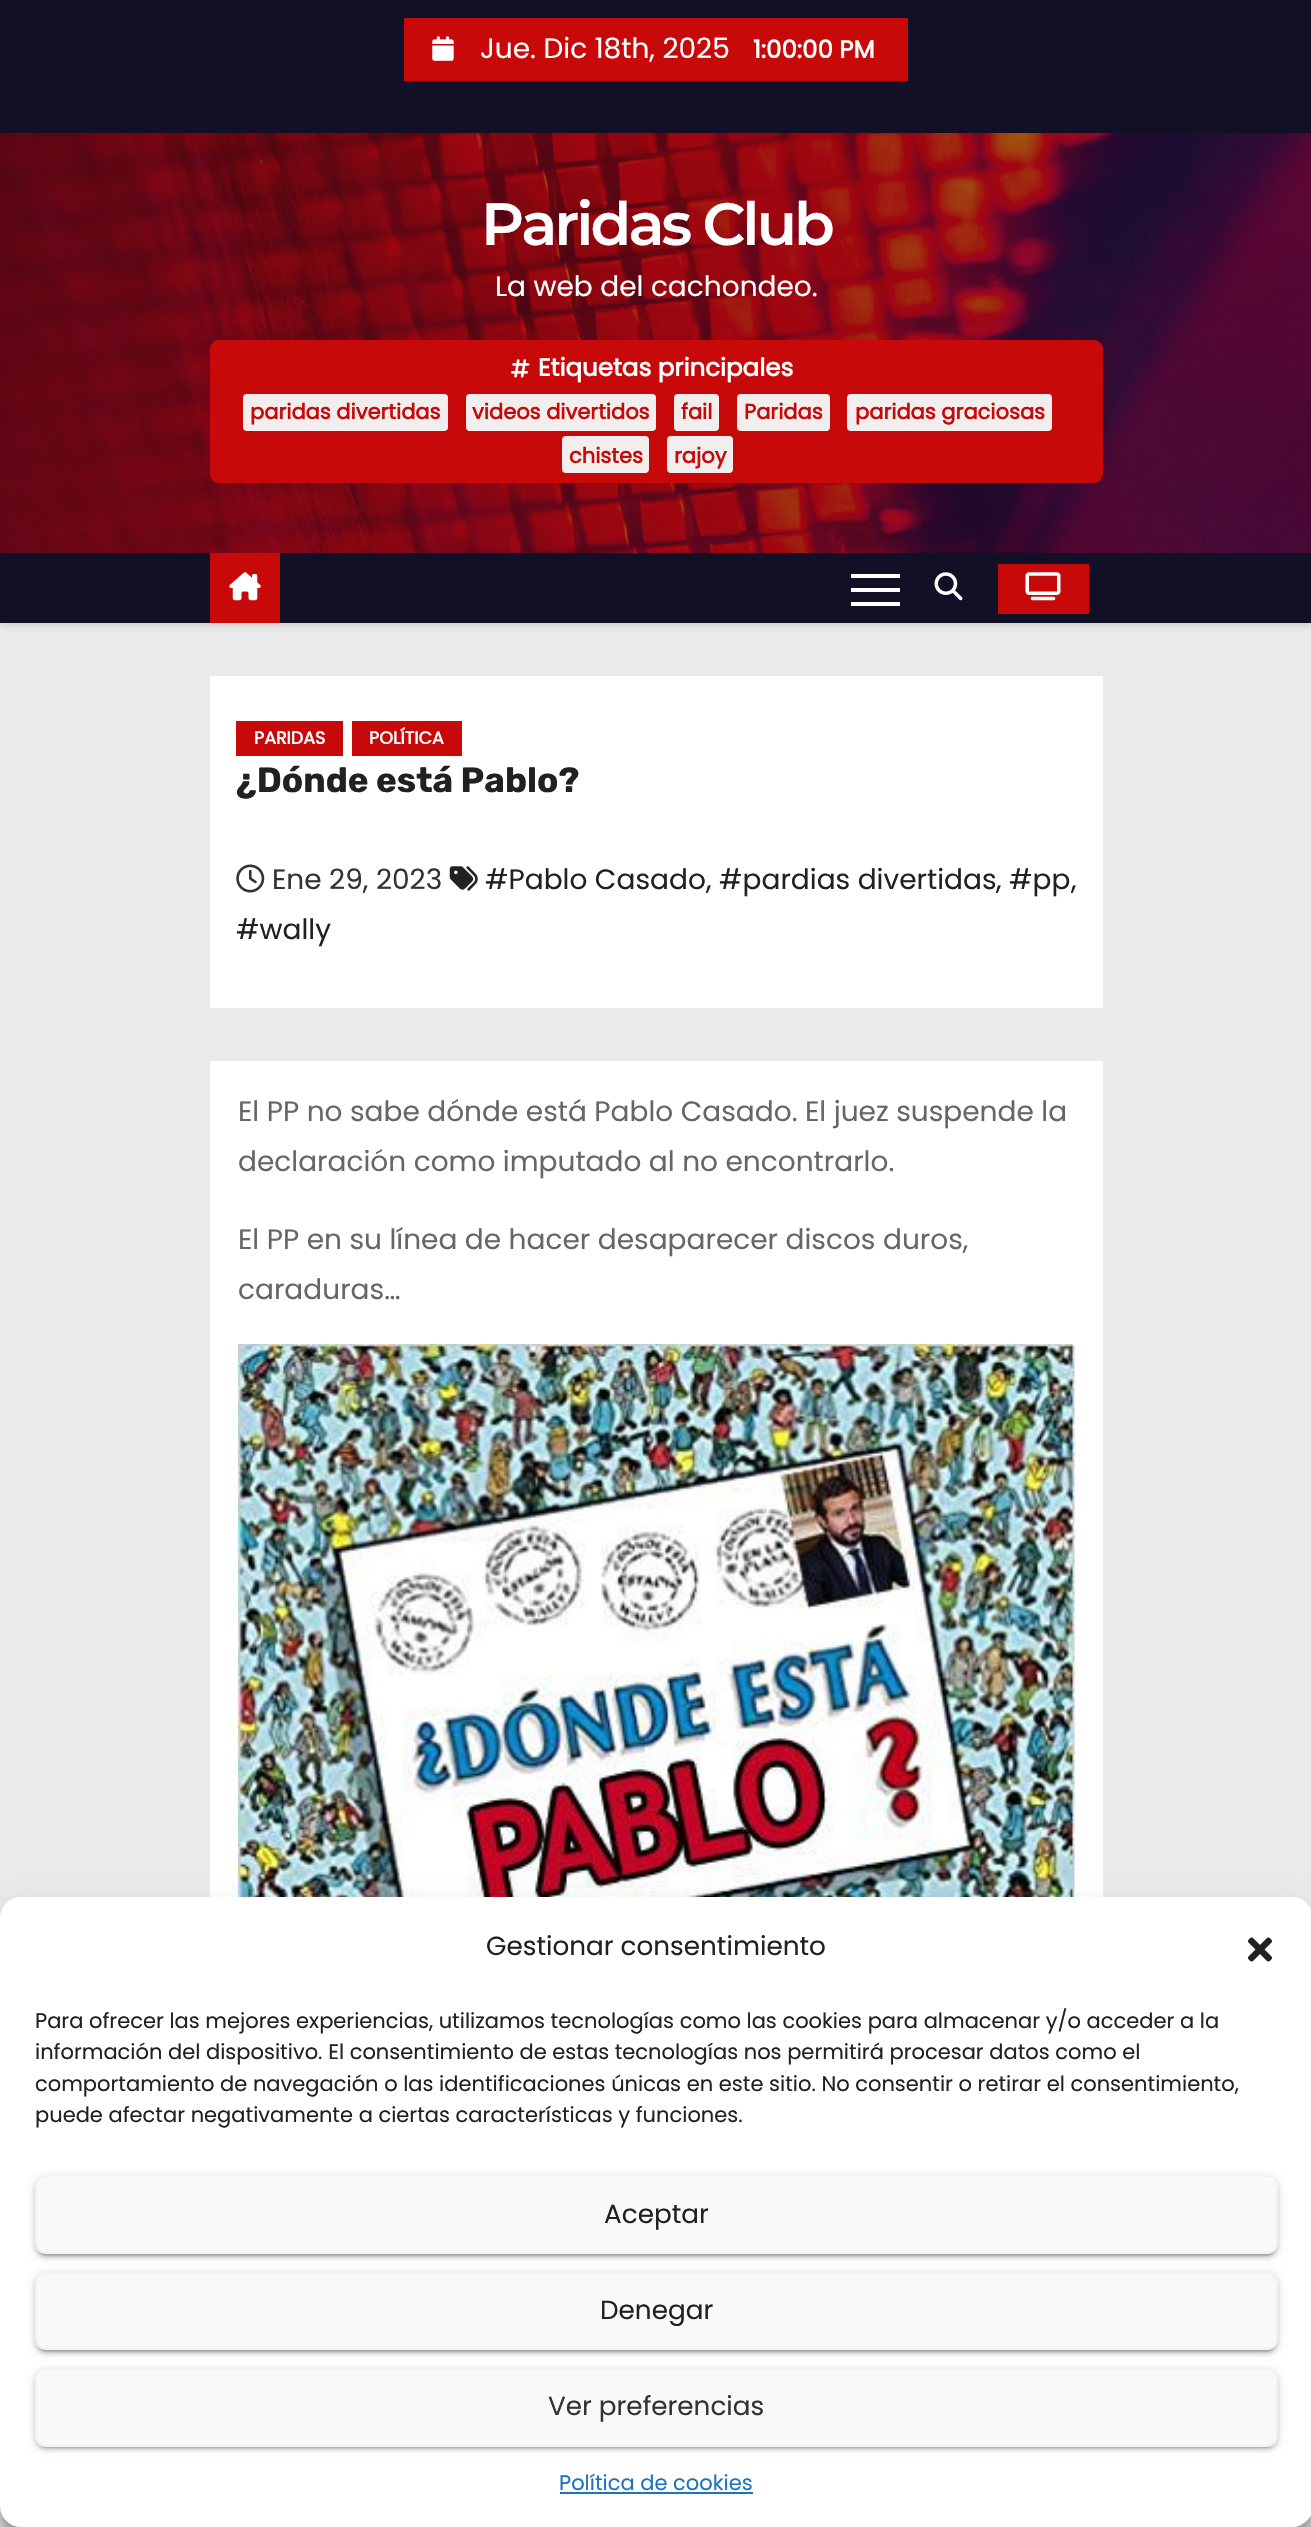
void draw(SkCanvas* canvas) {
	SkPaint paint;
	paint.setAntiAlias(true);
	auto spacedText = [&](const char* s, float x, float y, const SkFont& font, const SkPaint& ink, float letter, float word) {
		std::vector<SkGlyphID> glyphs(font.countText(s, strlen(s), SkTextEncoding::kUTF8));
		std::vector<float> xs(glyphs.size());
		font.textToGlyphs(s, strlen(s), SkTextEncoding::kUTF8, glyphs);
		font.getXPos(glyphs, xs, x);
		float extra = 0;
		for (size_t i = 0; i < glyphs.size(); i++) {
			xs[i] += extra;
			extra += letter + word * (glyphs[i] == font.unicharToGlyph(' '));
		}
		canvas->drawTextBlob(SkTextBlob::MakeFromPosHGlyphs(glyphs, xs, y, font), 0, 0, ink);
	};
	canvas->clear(0xffeaeaea);
	paint.setColor(0xff121026);
	canvas->drawRect(SkRect::MakeXYWH(0, 0, 1311, 133), paint);
	paint.setColor(0xffc70909);
	canvas->drawRect(SkRect::MakeXYWH(404, 18, 504, 63), paint);
	canvas->drawImageRect(SkImages::DeferredFromEncodedData(SkData::MakeFromFileName("img1.png")), SkRect::MakeXYWH(432, 36, 22, 25), SkSamplingOptions());
	SkFont f1(fontMgr->matchFamilyStyle("Poppins", SkFontStyle::Normal()), 28);
	f1.setSubpixel(true);
	paint.setColor(0xffffffff);
	canvas->drawString("Jue. Dic 18th, 2025", 480, 58, f1, paint);
	SkFont f2(fontMgr->matchFamilyStyle("Poppins", SkFontStyle::Bold()), 24.5);
	f2.setSubpixel(true);
	canvas->drawString("1:00:00 PM", 753, 58, f2, paint);
	canvas->drawImageRect(SkImages::DeferredFromEncodedData(SkData::MakeFromFileName("img2.png")), SkRect::MakeXYWH(0, 133, 1311, 420), SkSamplingOptions());
	SkFont f3(fontMgr->matchFamilyStyle("Montserrat", SkFontStyle(600, SkFontStyle::kNormal_Width, SkFontStyle::kUpright_Slant)), 59.5);
	f3.setSubpixel(true);
	spacedText("Paridas Club", 481, 245, f3, paint, -3, 0);
	canvas->drawString("La web del cachondeo.", 495, 296, f1, paint);
	paint.setColor(0xffc70909);
	canvas->drawRoundRect(SkRect::MakeXYWH(210, 340, 893, 143), 9, 9, paint);
	canvas->drawImageRect(SkImages::DeferredFromEncodedData(SkData::MakeFromFileName("img3.png")), SkRect::MakeXYWH(511, 359, 19, 19), SkSamplingOptions());
	paint.setColor(0xffffffff);
	canvas->drawString("Etiquetas principales", 538, 376, f2, paint);
	paint.setColor(0xfff3eeee);
	canvas->drawRoundRect(SkRect::MakeXYWH(243, 394, 205, 37), 4, 4, paint);
	SkFont f4(fontMgr->matchFamilyStyle("Poppins", SkFontStyle::Bold()), 21);
	f4.setSubpixel(true);
	paint.setColor(0xffc70909);
	canvas->drawString("paridas divertidas", 250, 419, f4, paint);
	paint.setColor(0xfff3eeee);
	canvas->drawRoundRect(SkRect::MakeXYWH(466, 394, 190, 37), 4, 4, paint);
	paint.setColor(0xffc70909);
	canvas->drawString("videos divertidos", 472, 419, f4, paint);
	paint.setColor(0xfff3eeee);
	canvas->drawRoundRect(SkRect::MakeXYWH(674, 394, 45, 37), 4, 4, paint);
	paint.setColor(0xffc70909);
	canvas->drawString("fail", 681, 419, f4, paint);
	paint.setColor(0xfff3eeee);
	canvas->drawRoundRect(SkRect::MakeXYWH(737, 394, 93, 37), 4, 4, paint);
	paint.setColor(0xffc70909);
	canvas->drawString("Paridas", 744, 419, f4, paint);
	paint.setColor(0xfff3eeee);
	canvas->drawRoundRect(SkRect::MakeXYWH(847, 394, 205, 37), 4, 4, paint);
	paint.setColor(0xffc70909);
	canvas->drawString("paridas graciosas", 855, 419, f4, paint);
	paint.setColor(0xfff3eeee);
	canvas->drawRoundRect(SkRect::MakeXYWH(562, 436, 87, 37), 4, 4, paint);
	paint.setColor(0xffc70909);
	canvas->drawString("chistes", 569, 463, f4, paint);
	paint.setColor(0xfff3eeee);
	canvas->drawRoundRect(SkRect::MakeXYWH(667, 436, 66, 37), 4, 4, paint);
	paint.setColor(0xffc70909);
	canvas->drawString("rajoy", 674, 463, f4, paint);
	paint.setColor(0x14000000);
	paint.setMaskFilter(SkMaskFilter::MakeBlur(kNormal_SkBlurStyle, 2));
	canvas->drawRect(SkRect::MakeXYWH(0, 557, 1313, 70), paint);
	paint.setMaskFilter(nullptr);
	paint.setColor(0xff121026);
	canvas->drawRect(SkRect::MakeXYWH(0, 553, 1311, 70), paint);
	paint.setColor(0xffc70909);
	canvas->drawRect(SkRect::MakeXYWH(210, 553, 70, 70), paint);
	canvas->drawImageRect(SkImages::DeferredFromEncodedData(SkData::MakeFromFileName("img4.png")), SkRect::MakeXYWH(229, 572, 32, 29), SkSamplingOptions());
	paint.setColor(0xffffffff);
	canvas->drawRect(SkRect::MakeXYWH(851, 574, 49, 4), paint);
	canvas->drawRect(SkRect::MakeXYWH(851, 588, 49, 4), paint);
	canvas->drawRect(SkRect::MakeXYWH(851, 602, 49, 4), paint);
	canvas->drawImageRect(SkImages::DeferredFromEncodedData(SkData::MakeFromFileName("img5.png")), SkRect::MakeXYWH(934, 572, 29, 29), SkSamplingOptions());
	paint.setColor(0xffc70909);
	canvas->drawRect(SkRect::MakeXYWH(998, 564, 91, 50), paint);
	canvas->drawImageRect(SkImages::DeferredFromEncodedData(SkData::MakeFromFileName("img6.png")), SkRect::MakeXYWH(1025, 572, 36, 29), SkSamplingOptions());
	paint.setColor(0xffffffff);
	canvas->drawRect(SkRect::MakeXYWH(210, 676, 893, 332), paint);
	paint.setColor(0xffc70909);
	canvas->drawRect(SkRect::MakeXYWH(236, 721, 107, 35), paint);
	SkFont f5(fontMgr->matchFamilyStyle("Poppins", SkFontStyle::Bold()), 17.5);
	f5.setSubpixel(true);
	paint.setColor(0xffffffff);
	canvas->drawString("PARIDAS", 254, 744, f5, paint);
	paint.setColor(0xffc70909);
	canvas->drawRect(SkRect::MakeXYWH(352, 721, 110, 35), paint);
	paint.setColor(0xffffffff);
	canvas->drawString("POLÍTICA", 369, 744, f5, paint);
	SkFont f6(fontMgr->matchFamilyStyle("Rubik", SkFontStyle::Bold()), 35);
	f6.setSubpixel(true);
	paint.setColor(0xff212121);
	canvas->drawString("¿Dónde está Pablo?", 236, 792, f6, paint);
	canvas->drawImageRect(SkImages::DeferredFromEncodedData(SkData::MakeFromFileName("img7.png")), SkRect::MakeXYWH(449, 866, 29, 25), SkSamplingOptions());
	canvas->drawString("#Pablo Casado", 485, 889, f1, paint);
	canvas->drawString(",", 706, 889, f1, paint);
	canvas->drawString("#pardias divertidas", 719, 889, f1, paint);
	canvas->drawString(",", 996, 889, f1, paint);
	canvas->drawString("#pp", 1009, 889, f1, paint);
	canvas->drawString(",", 1071, 889, f1, paint);
	canvas->drawString("#wally", 236, 939, f1, paint);
	canvas->drawImageRect(SkImages::DeferredFromEncodedData(SkData::MakeFromFileName("img8.png")), SkRect::MakeXYWH(236, 864, 29, 29), SkSamplingOptions());
	paint.setColor(0xff333333);
	canvas->drawString("Ene 29, 2023", 272, 889, f1, paint);
	paint.setColor(0xffffffff);
	canvas->drawRect(SkRect::MakeXYWH(210, 1061, 893, 836), paint);
	paint.setColor(0xff666666);
	canvas->drawString("El PP no sabe dónde está Pablo Casado. El juez suspende la", 238, 1121, f1, paint);
	canvas->drawString("declaración como imputado al no encontrarlo.", 238, 1171, f1, paint);
	canvas->drawString("El PP en su línea de hacer desaparecer discos duros,", 238, 1249, f1, paint);
	canvas->drawString("caraduras…", 238, 1299, f1, paint);
	canvas->drawImageRect(SkImages::DeferredFromEncodedData(SkData::MakeFromFileName("img9.png")), SkRect::MakeXYWH(238, 1344, 837, 553), SkSamplingOptions());
	paint.setColor(0x3b000000);
	paint.setMaskFilter(SkMaskFilter::MakeBlur(kNormal_SkBlurStyle, 5));
	canvas->drawRoundRect(SkRect::MakeXYWH(0, 1908, 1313, 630), 21, 21, paint);
	paint.setMaskFilter(nullptr);
	paint.setColor(0x30000000);
	paint.setMaskFilter(SkMaskFilter::MakeBlur(kNormal_SkBlurStyle, 17.5));
	canvas->drawRoundRect(SkRect::MakeXYWH(0, 1915, 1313, 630), 21, 21, paint);
	paint.setMaskFilter(nullptr);
	paint.setColor(0xffffffff);
	canvas->drawRoundRect(SkRect::MakeXYWH(0, 1897, 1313, 630), 21, 21, paint);
	SkFont f7(fontMgr->matchFamilyStyle("Poppins", SkFontStyle::Normal()), 26.25);
	f7.setSubpixel(true);
	paint.setColor(0xff212121);
	canvas->drawString("Gestionar consentimiento", 486, 1955, f7, paint);
	canvas->drawImageRect(SkImages::DeferredFromEncodedData(SkData::MakeFromFileName("img10.png")), SkRect::MakeXYWH(1248, 1937, 24, 25), SkSamplingOptions());
	SkFont f8(fontMgr->matchFamilyStyle("Poppins", SkFontStyle::Normal()), 21);
	f8.setSubpixel(true);
	canvas->drawString("Para ofrecer las mejores experiencias, utilizamos tecnologías como las cookies para almacenar y/o acceder a la", 35, 2028, f8, paint);
	canvas->drawString("información del dispositivo. El consentimiento de estas tecnologías nos permitirá procesar datos como el", 35, 2059, f8, paint);
	canvas->drawString("comportamiento de navegación o las identificaciones únicas en este sitio. No consentir o retirar el consentimiento,", 35, 2091, f8, paint);
	canvas->drawString("puede afectar negativamente a ciertas características y funciones.", 35, 2122, f8, paint);
	paint.setColor(0x1f000000);
	paint.setMaskFilter(SkMaskFilter::MakeBlur(kNormal_SkBlurStyle, 4.5));
	canvas->drawRoundRect(SkRect::MakeXYWH(35, 2177, 1243, 79), 11, 11, paint);
	paint.setMaskFilter(nullptr);
	paint.setColor(0x33000000);
	paint.setMaskFilter(SkMaskFilter::MakeBlur(kNormal_SkBlurStyle, 1));
	canvas->drawRoundRect(SkRect::MakeXYWH(39, 2184, 1235, 72), 7, 7, paint);
	paint.setMaskFilter(nullptr);
	paint.setColor(0x24000000);
	paint.setMaskFilter(SkMaskFilter::MakeBlur(kNormal_SkBlurStyle, 2));
	canvas->drawRoundRect(SkRect::MakeXYWH(35, 2179, 1243, 79), 11, 11, paint);
	paint.setMaskFilter(nullptr);
	paint.setColor(0xfff9f9f9);
	canvas->drawRoundRect(SkRect::MakeXYWH(36, 2176, 1241, 77), 10, 10, paint);
	paint.setStroke(true);
	paint.setStrokeWidth(2);
	paint.setColor(0xfff2f2f2);
	canvas->drawRoundRect(SkRect::MakeXYWH(36, 2176, 1241, 77), 10, 10, paint);
	paint.setStroke(false);
	paint.setColor(0xff212121);
	canvas->drawString("Aceptar", 604, 2223, f7, paint);
	paint.setColor(0x1f000000);
	paint.setMaskFilter(SkMaskFilter::MakeBlur(kNormal_SkBlurStyle, 4.5));
	canvas->drawRoundRect(SkRect::MakeXYWH(35, 2273, 1243, 79), 11, 11, paint);
	paint.setMaskFilter(nullptr);
	paint.setColor(0x33000000);
	paint.setMaskFilter(SkMaskFilter::MakeBlur(kNormal_SkBlurStyle, 1));
	canvas->drawRoundRect(SkRect::MakeXYWH(39, 2280, 1235, 72), 7, 7, paint);
	paint.setMaskFilter(nullptr);
	paint.setColor(0x24000000);
	paint.setMaskFilter(SkMaskFilter::MakeBlur(kNormal_SkBlurStyle, 2));
	canvas->drawRoundRect(SkRect::MakeXYWH(35, 2275, 1243, 79), 11, 11, paint);
	paint.setMaskFilter(nullptr);
	paint.setColor(0xfff9f9f9);
	canvas->drawRoundRect(SkRect::MakeXYWH(36, 2273, 1241, 76), 10, 10, paint);
	paint.setStroke(true);
	paint.setColor(0xfff2f2f2);
	canvas->drawRoundRect(SkRect::MakeXYWH(36, 2273, 1241, 76), 10, 10, paint);
	paint.setStroke(false);
	paint.setColor(0xff212121);
	canvas->drawString("Denegar", 600, 2319, f7, paint);
	paint.setColor(0x1f000000);
	paint.setMaskFilter(SkMaskFilter::MakeBlur(kNormal_SkBlurStyle, 4.5));
	canvas->drawRoundRect(SkRect::MakeXYWH(35, 2370, 1243, 78), 11, 11, paint);
	paint.setMaskFilter(nullptr);
	paint.setColor(0x33000000);
	paint.setMaskFilter(SkMaskFilter::MakeBlur(kNormal_SkBlurStyle, 1));
	canvas->drawRoundRect(SkRect::MakeXYWH(39, 2377, 1235, 71), 7, 7, paint);
	paint.setMaskFilter(nullptr);
	paint.setColor(0x24000000);
	paint.setMaskFilter(SkMaskFilter::MakeBlur(kNormal_SkBlurStyle, 2));
	canvas->drawRoundRect(SkRect::MakeXYWH(35, 2371, 1243, 79), 11, 11, paint);
	paint.setMaskFilter(nullptr);
	paint.setColor(0xfff9f9f9);
	canvas->drawRoundRect(SkRect::MakeXYWH(36, 2369, 1241, 77), 10, 10, paint);
	paint.setStroke(true);
	paint.setColor(0xfff2f2f2);
	canvas->drawRoundRect(SkRect::MakeXYWH(36, 2369, 1241, 77), 10, 10, paint);
	paint.setStroke(false);
	paint.setColor(0xff333333);
	canvas->drawString("Ver preferencias", 548, 2415, f7, paint);
	paint.setColor(0xff1e73be);
	canvas->drawString("Política de cookies", 559, 2490, f8, paint);
	canvas->drawRect(SkRect::MakeXYWH(560, 2492, 193, 2), paint);
}
